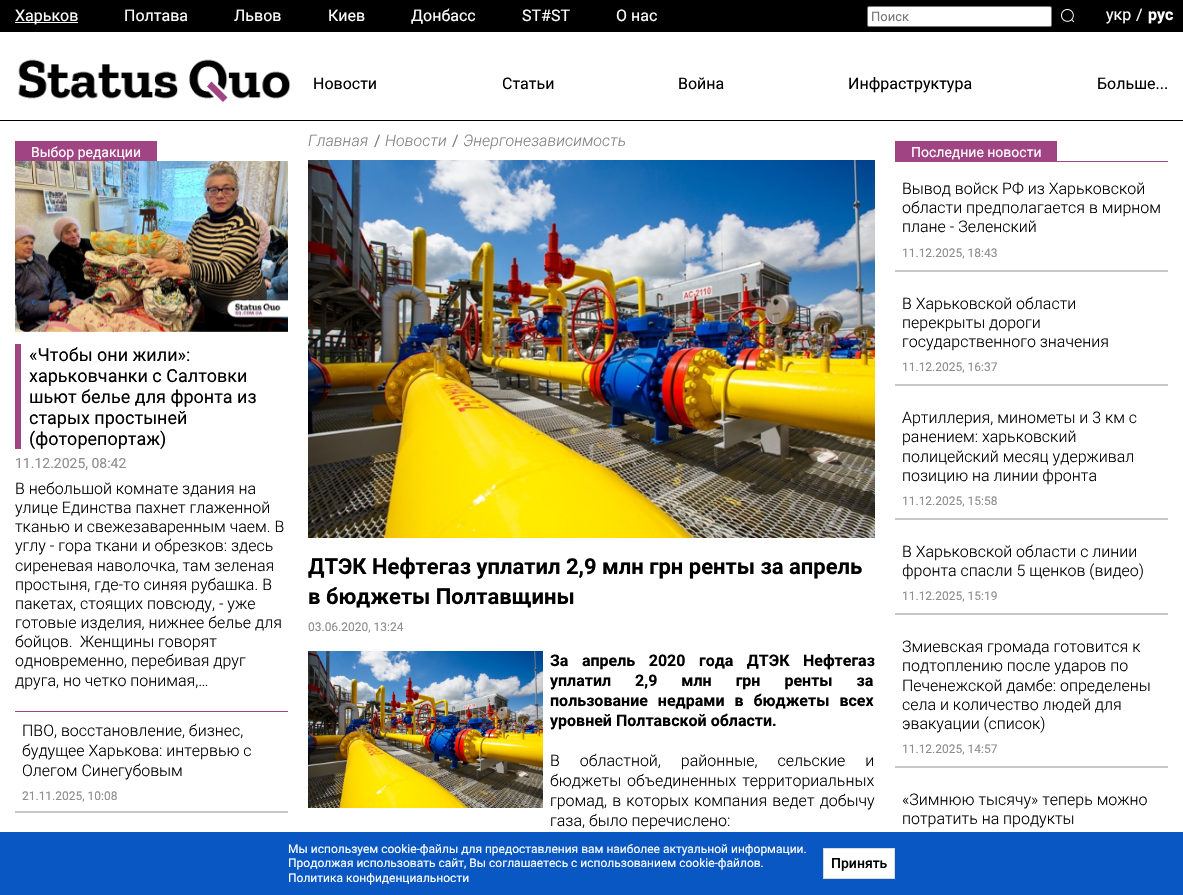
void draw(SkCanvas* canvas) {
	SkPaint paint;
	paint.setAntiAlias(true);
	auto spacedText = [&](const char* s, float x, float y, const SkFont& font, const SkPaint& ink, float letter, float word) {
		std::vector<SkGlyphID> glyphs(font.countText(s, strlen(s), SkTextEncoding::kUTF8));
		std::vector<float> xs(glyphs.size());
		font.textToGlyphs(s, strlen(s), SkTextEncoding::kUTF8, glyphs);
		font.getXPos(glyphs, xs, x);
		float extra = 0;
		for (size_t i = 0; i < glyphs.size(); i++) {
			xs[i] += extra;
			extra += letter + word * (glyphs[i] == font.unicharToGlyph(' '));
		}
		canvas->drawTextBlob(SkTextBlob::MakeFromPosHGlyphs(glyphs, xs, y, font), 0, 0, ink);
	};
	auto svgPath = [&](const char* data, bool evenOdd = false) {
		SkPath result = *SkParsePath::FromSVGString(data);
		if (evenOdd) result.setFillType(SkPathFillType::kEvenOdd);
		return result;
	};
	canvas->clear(0xffffffff);
	paint.setColor(0xff000000);
	canvas->drawRect(SkRect::MakeXYWH(0, 120, 1183, 1), paint);
	canvas->drawRect(SkRect::MakeXYWH(0, 0, 1183, 32), paint);
	paint.setColor(0xffffffff);
	canvas->drawRect(SkRect::MakeXYWH(15, 22, 63, 1), paint);
	SkFont f1(fontMgr->matchFamilyStyle("Roboto", SkFontStyle::Normal()), 16);
	f1.setSubpixel(true);
	canvas->drawString("Харьков", 15, 21, f1, paint);
	canvas->drawString("Полтава", 124, 21, f1, paint);
	canvas->drawString("Львов", 234, 21, f1, paint);
	canvas->drawString("Киев", 328, 21, f1, paint);
	canvas->drawString("Донбасс", 411, 21, f1, paint);
	canvas->drawString("ST#ST", 522, 21, f1, paint);
	canvas->drawString("О нас", 616, 21, f1, paint);
	canvas->drawRoundRect(SkRect::MakeXYWH(867.5, 6.5, 184, 20), 1.5, 1.5, paint);
	paint.setStroke(true);
	paint.setStrokeWidth(1);
	paint.setColor(0xff767676);
	canvas->drawRoundRect(SkRect::MakeXYWH(867.5, 6.5, 184, 20), 1.5, 1.5, paint);
	SkFont f2(fontMgr->matchFamilyStyle("Roboto", SkFontStyle::Normal()), 13);
	f2.setSubpixel(true);
	paint.setStroke(false);
	paint.setColor(0xff757575);
	canvas->drawString("Поиск", 871, 21, f2, paint);
	canvas->drawImageRect(SkImages::DeferredFromEncodedData(SkData::MakeFromFileName("img1.png")), SkRect::MakeXYWH(1061, 9, 14, 14), SkSamplingOptions());
	paint.setColor(0xffffffff);
	canvas->drawString("укр", 1106, 20, f1, paint);
	canvas->drawString("/", 1136, 20, f1, paint);
	SkFont f3(fontMgr->matchFamilyStyle("Roboto", SkFontStyle::Bold()), 16);
	f3.setSubpixel(true);
	canvas->drawString("рус", 1148, 20, f3, paint);
	canvas->drawImageRect(SkImages::DeferredFromEncodedData(SkData::MakeFromFileName("img2.png")), SkRect::MakeXYWH(18, 59, 273, 40), SkSamplingOptions());
	paint.setColor(0xffa14484);
	canvas->drawPath(svgPath("M211.5 81.5L227.5 97.5L223 102L207 86.5Z"), paint);
	paint.setColor(0xff000000);
	canvas->drawString("Новости", 313, 89, f1, paint);
	canvas->drawString("Статьи", 502, 89, f1, paint);
	canvas->drawString("Война", 678, 89, f1, paint);
	canvas->drawString("Инфраструктура", 848, 89, f1, paint);
	canvas->drawString("Больше...", 1097, 89, f1, paint);
	paint.setColor(0xffa14484);
	canvas->drawRect(SkRect::MakeXYWH(15, 141, 142, 20), paint);
	SkFont f4(fontMgr->matchFamilyStyle("Roboto", SkFontStyle::Normal()), 14);
	f4.setSubpixel(true);
	paint.setColor(0xffffffff);
	canvas->drawString("Выбор редакции", 31, 157, f4, paint);
	paint.setColor(0xffa14484);
	canvas->drawRect(SkRect::MakeXYWH(15, 711, 273, 1), paint);
	canvas->drawImageRect(SkImages::DeferredFromEncodedData(SkData::MakeFromFileName("img3.png")), SkRect::MakeXYWH(15, 161, 273, 171), SkSamplingOptions());
	canvas->drawRect(SkRect::MakeXYWH(15, 344, 6, 105), paint);
	SkFont f5(fontMgr->matchFamilyStyle("Roboto", SkFontStyle::Normal()), 18);
	f5.setSubpixel(true);
	paint.setColor(0xff000000);
	canvas->drawString("«Чтобы они жили»:", 29, 361, f5, paint);
	canvas->drawString("харьковчанки с Салтовки", 29, 382, f5, paint);
	canvas->drawString("шьют белье для фронта из", 29, 403, f5, paint);
	canvas->drawString("старых простыней", 29, 424, f5, paint);
	canvas->drawString("(фоторепортаж)", 29, 445, f5, paint);
	paint.setColor(0xff8d8d8d);
	canvas->drawString("11.12.2025, 08:42", 15, 468, f4, paint);
	SkFont f6(fontMgr->matchFamilyStyle("Roboto", SkFontStyle(300, SkFontStyle::kNormal_Width, SkFontStyle::kUpright_Slant)), 16);
	f6.setSubpixel(true);
	paint.setColor(0xff000000);
	canvas->drawString("В небольшой комнате здания на", 15, 494, f6, paint);
	canvas->drawString("улице Единства пахнет глаженной", 15, 513, f6, paint);
	canvas->drawString("тканью и свежезаваренным чаем. В", 15, 532, f6, paint);
	canvas->drawString("углу - гора ткани и обрезков: здесь", 15, 551, f6, paint);
	canvas->drawString("сиреневая наволочка, там зеленая", 15, 571, f6, paint);
	canvas->drawString("простыня, где-то синяя рубашка. В", 15, 590, f6, paint);
	canvas->drawString("пакетах, стоящих повсюду, - уже", 15, 609, f6, paint);
	canvas->drawString("готовые изделия, нижнее белье для", 15, 628, f6, paint);
	canvas->drawString("бойцов.", 15, 647, f6, paint);
	canvas->drawString("Женщины говорят", 80, 647, f6, paint);
	canvas->drawString("одновременно, перебивая друг", 15, 666, f6, paint);
	canvas->drawString("друга, но четко понимая,…", 15, 686, f6, paint);
	paint.setColor(0xffc7c7c7);
	canvas->drawRect(SkRect::MakeXYWH(15, 811, 273, 2), paint);
	paint.setColor(0xff000000);
	canvas->drawString("ПВО, восстановление, бизнес,", 22, 736, f6, paint);
	canvas->drawString("будущее Харькова: интервью с", 22, 756, f6, paint);
	canvas->drawString("Олегом Синегубовым", 22, 776, f6, paint);
	SkFont f7(fontMgr->matchFamilyStyle("Roboto", SkFontStyle::Normal()), 12);
	f7.setSubpixel(true);
	paint.setColor(0xff8d8d8d);
	canvas->drawString("21.11.2025, 10:08", 22, 800, f7, paint);
	SkFont f8(fontMgr->matchFamilyStyle("Roboto", SkFontStyle(300, SkFontStyle::kNormal_Width, SkFontStyle::kItalic_Slant)), 16);
	f8.setSubpixel(true);
	paint.setColor(0xff828282);
	canvas->drawString("Главная", 308, 146, f8, paint);
	canvas->drawString("/", 374, 146, f1, paint);
	canvas->drawString("Новости", 385, 146, f8, paint);
	canvas->drawString("/", 452, 146, f1, paint);
	canvas->drawString("Энергонезависимость", 463, 146, f8, paint);
	canvas->drawImageRect(SkImages::DeferredFromEncodedData(SkData::MakeFromFileName("img4.png")), SkRect::MakeXYWH(308, 160, 567, 378), SkSamplingOptions());
	SkFont f9(fontMgr->matchFamilyStyle("Roboto", SkFontStyle::Bold()), 22);
	f9.setSubpixel(true);
	paint.setColor(0xff000000);
	canvas->drawString("ДТЭК Нефтегаз уплатил 2,9 млн грн ренты за апрель", 308, 574, f9, paint);
	canvas->drawString("в бюджеты Полтавщины", 308, 604, f9, paint);
	paint.setColor(0xff8d8d8d);
	canvas->drawString("03.06.2020, 13:24", 308, 631, f7, paint);
	canvas->drawImageRect(SkImages::DeferredFromEncodedData(SkData::MakeFromFileName("img5.png")), SkRect::MakeXYWH(308, 651, 235, 157), SkSamplingOptions());
	paint.setColor(0xff000000);
	spacedText("За апрель 2020 года ДТЭК Нефтегаз", 550, 666, f3, paint, 0, 9.5);
	spacedText("уплатил 2,9 млн грн ренты за", 550, 686, f3, paint, 0, 20);
	spacedText("пользование недрами в бюджеты всех", 550, 706, f3, paint, 0, 6);
	canvas->drawString("уровней Полтавской области.", 550, 726, f3, paint);
	spacedText("В областной, районные, сельские и", 550, 766, f6, paint, 0, 16);
	spacedText("бюджеты объединенных территориальных", 550, 786, f6, paint, 0, 2);
	spacedText("громад, в которых компания ведет добычу", 550, 806, f6, paint, 0, 1.25);
	canvas->drawString("газа, было перечислено:", 550, 826, f6, paint);
	paint.setColor(0xffa14484);
	canvas->drawRect(SkRect::MakeXYWH(895, 161, 273, 1), paint);
	canvas->drawRect(SkRect::MakeXYWH(895, 141, 162, 20), paint);
	paint.setColor(0xffffffff);
	canvas->drawString("Последние новости", 911, 157, f4, paint);
	paint.setColor(0xffc7c7c7);
	canvas->drawRect(SkRect::MakeXYWH(895, 270, 273, 2), paint);
	paint.setColor(0xff000000);
	canvas->drawString("Вывод войск РФ из Харьковской", 902, 194, f6, paint);
	canvas->drawString("области предполагается в мирном", 902, 213, f6, paint);
	canvas->drawString("плане - Зеленский", 902, 232, f6, paint);
	paint.setColor(0xff8d8d8d);
	canvas->drawString("11.12.2025, 18:43", 902, 257, f7, paint);
	paint.setColor(0xffc7c7c7);
	canvas->drawRect(SkRect::MakeXYWH(895, 384, 273, 2), paint);
	paint.setColor(0xff000000);
	canvas->drawString("В Харьковской области", 902, 309, f6, paint);
	canvas->drawString("перекрыты дороги", 902, 328, f6, paint);
	canvas->drawString("государственного значения", 902, 347, f6, paint);
	paint.setColor(0xff8d8d8d);
	canvas->drawString("11.12.2025, 16:37", 902, 371, f7, paint);
	paint.setColor(0xffc7c7c7);
	canvas->drawRect(SkRect::MakeXYWH(895, 518, 273, 2), paint);
	paint.setColor(0xff000000);
	canvas->drawString("Артиллерия, минометы и 3 км с", 902, 423, f6, paint);
	canvas->drawString("ранением: харьковский", 902, 442, f6, paint);
	canvas->drawString("полицейский месяц удерживал", 902, 462, f6, paint);
	canvas->drawString("позицию на линии фронта", 902, 481, f6, paint);
	paint.setColor(0xff8d8d8d);
	canvas->drawString("11.12.2025, 15:58", 902, 505, f7, paint);
	paint.setColor(0xffc7c7c7);
	canvas->drawRect(SkRect::MakeXYWH(895, 613, 273, 2), paint);
	paint.setColor(0xff000000);
	canvas->drawString("В Харьковской области с линии", 902, 557, f6, paint);
	canvas->drawString("фронта спасли 5 щенков (видео)", 902, 576, f6, paint);
	paint.setColor(0xff8d8d8d);
	canvas->drawString("11.12.2025, 15:19", 902, 600, f7, paint);
	paint.setColor(0xffc7c7c7);
	canvas->drawRect(SkRect::MakeXYWH(895, 766, 273, 2), paint);
	paint.setColor(0xff000000);
	canvas->drawString("Змиевская громада готовится к", 902, 652, f6, paint);
	canvas->drawString("подтоплению после ударов по", 902, 671, f6, paint);
	canvas->drawString("Печенежской дамбе: определены", 902, 691, f6, paint);
	canvas->drawString("села и количество людей для", 902, 710, f6, paint);
	canvas->drawString("эвакуации (список)", 902, 729, f6, paint);
	paint.setColor(0xff8d8d8d);
	canvas->drawString("11.12.2025, 14:57", 902, 753, f7, paint);
	paint.setColor(0xff000000);
	canvas->drawString("«Зимнюю тысячу» теперь можно", 902, 805, f6, paint);
	canvas->drawString("потратить на продукты", 902, 824, f6, paint);
	paint.setColor(0xff0857c3);
	canvas->drawRect(SkRect::MakeXYWH(0, 832, 1183, 63), paint);
	paint.setColor(0xffffffff);
	canvas->drawString("Мы используем cookie-файлы для предоставления вам наиболее актуальной информации.", 288, 853, f7, paint);
	canvas->drawString("Продолжая использовать сайт, Вы соглашаетесь с использованием cookie-файлов.", 288, 867, f7, paint);
	canvas->drawString("Политика конфиденциальности", 288, 882, f7, paint);
	canvas->drawRect(SkRect::MakeXYWH(823.5, 848.5, 71, 30), paint);
	paint.setStroke(true);
	paint.setColor(0xffdadada);
	canvas->drawRect(SkRect::MakeXYWH(823.5, 848.5, 71, 30), paint);
	SkFont f10(fontMgr->matchFamilyStyle("Roboto", SkFontStyle(500, SkFontStyle::kNormal_Width, SkFontStyle::kUpright_Slant)), 14);
	f10.setSubpixel(true);
	paint.setStroke(false);
	paint.setColor(0xff000000);
	canvas->drawString("Принять", 831, 868, f10, paint);
}
